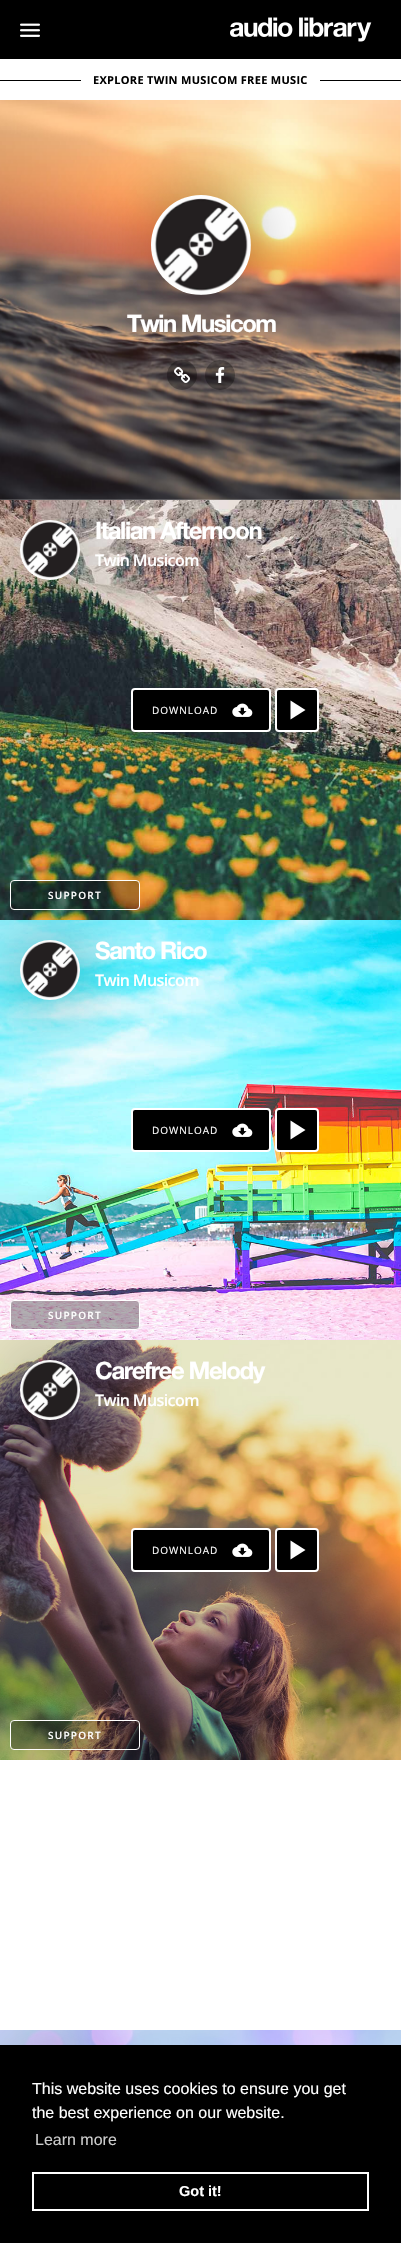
void draw(SkCanvas* canvas) {
	SkPaint paint;
	paint.setAntiAlias(true);
	auto spacedText = [&](const char* s, float x, float y, const SkFont& font, const SkPaint& ink, float letter, float word) {
		std::vector<SkGlyphID> glyphs(font.countText(s, strlen(s), SkTextEncoding::kUTF8));
		std::vector<float> xs(glyphs.size());
		font.textToGlyphs(s, strlen(s), SkTextEncoding::kUTF8, glyphs);
		font.getXPos(glyphs, xs, x);
		float extra = 0;
		for (size_t i = 0; i < glyphs.size(); i++) {
			xs[i] += extra;
			extra += letter + word * (glyphs[i] == font.unicharToGlyph(' '));
		}
		canvas->drawTextBlob(SkTextBlob::MakeFromPosHGlyphs(glyphs, xs, y, font), 0, 0, ink);
	};
	auto svgPath = [&](const char* data, bool evenOdd = false) {
		SkPath result = *SkParsePath::FromSVGString(data);
		if (evenOdd) result.setFillType(SkPathFillType::kEvenOdd);
		return result;
	};
	canvas->clear(0xffe4e4e4);
	paint.setColor(0xff000000);
	canvas->drawRect(SkRect::MakeXYWH(0, 0, 401, 59), paint);
	canvas->drawImageRect(SkImages::DeferredFromEncodedData(SkData::MakeFromFileName("img1.png")), SkRect::MakeXYWH(20, 23, 20, 14), SkSamplingOptions());
	canvas->drawImageRect(SkImages::DeferredFromEncodedData(SkData::MakeFromFileName("img2.png")), SkRect::MakeXYWH(230, 17, 142, 25), SkSamplingOptions());
	paint.setColor(0xffffffff);
	canvas->drawRect(SkRect::MakeXYWH(0, 59, 401, 41), paint);
	paint.setColor(0xff000000);
	canvas->drawRect(SkRect::MakeXYWH(0, 80, 401, 1), paint);
	paint.setColor(0xffffffff);
	canvas->drawRect(SkRect::MakeXYWH(81, 80, 239, 1), paint);
	SkFont f1(fontMgr->matchFamilyStyle("Open Sans", SkFontStyle::Bold()), 11);
	f1.setSubpixel(true);
	paint.setColor(0xff000000);
	spacedText("EXPLORE TWIN MUSICOM FREE MUSIC", 93, 84, f1, paint, 0.3, 0);
	canvas->drawImageRect(SkImages::DeferredFromEncodedData(SkData::MakeFromFileName("img3.png")), SkRect::MakeXYWH(0, 100, 401, 400), SkSamplingOptions());
	paint.setColor(0x66000000);
	paint.setMaskFilter(SkMaskFilter::MakeBlur(kNormal_SkBlurStyle, 35));
	canvas->drawRoundRect(SkRect::MakeXYWH(151, 195, 100, 100), 50, 50, paint);
	paint.setMaskFilter(nullptr);
	canvas->drawImageRect(SkImages::DeferredFromEncodedData(SkData::MakeFromFileName("img4.png")), SkRect::MakeXYWH(151, 195, 100, 100), SkSamplingOptions());
	SkFont f2(fontMgr->matchFamilyStyle("Helvetica Neue", SkFontStyle::Bold()), 24);
	f2.setSubpixel(true);
	paint.setColor(0xffffffff);
	spacedText("Twin Musicom", 127, 332, f2, paint, -1.5, 0);
	paint.setColor(0x4d000000);
	canvas->drawCircle(182, 375, 15, paint);
	canvas->drawImageRect(SkImages::DeferredFromEncodedData(SkData::MakeFromFileName("img5.png")), SkRect::MakeXYWH(174, 367, 16, 16), SkSamplingOptions());
	canvas->drawCircle(220, 375, 15, paint);
	canvas->drawImageRect(SkImages::DeferredFromEncodedData(SkData::MakeFromFileName("img6.png")), SkRect::MakeXYWH(215, 367, 10, 16), SkSamplingOptions());
	canvas->drawImageRect(SkImages::DeferredFromEncodedData(SkData::MakeFromFileName("img7.png")), SkRect::MakeXYWH(0, 500, 401, 420), SkSamplingOptions());
	canvas->save();
	canvas->clipRect(SkRect::MakeXYWH(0, 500, 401, 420));
	paint.setColor(0x66000000);
	paint.setMaskFilter(SkMaskFilter::MakeBlur(kNormal_SkBlurStyle, 35));
	canvas->drawRoundRect(SkRect::MakeXYWH(20, 520, 60, 60), 30, 30, paint);
	paint.setMaskFilter(nullptr);
	canvas->restore();
	canvas->drawImageRect(SkImages::DeferredFromEncodedData(SkData::MakeFromFileName("img8.png")), SkRect::MakeXYWH(20, 520, 60, 60), SkSamplingOptions());
	paint.setColor(0xffffffff);
	spacedText("Italian Afternoon", 95, 539, f2, paint, -1.4, 0);
	SkFont f3(fontMgr->matchFamilyStyle("Open Sans", SkFontStyle(600, SkFontStyle::kNormal_Width, SkFontStyle::kUpright_Slant)), 16);
	f3.setSubpixel(true);
	spacedText("Twin Musicom", 95, 566, f3, paint, -0.6, 0);
	paint.setColor(0xff000000);
	canvas->drawRoundRect(SkRect::MakeXYWH(132, 689, 138, 42), 3, 3, paint);
	paint.setStroke(true);
	paint.setStrokeWidth(2);
	paint.setColor(0xffffffff);
	canvas->drawRoundRect(SkRect::MakeXYWH(132, 689, 138, 42), 3, 3, paint);
	SkFont f4(fontMgr->matchFamilyStyle("Open Sans", SkFontStyle::Normal()), 10);
	f4.setSubpixel(true);
	paint.setStroke(false);
	spacedText("DOWNLOAD", 152, 714, f4, paint, 1, 0);
	canvas->drawImageRect(SkImages::DeferredFromEncodedData(SkData::MakeFromFileName("img9.png")), SkRect::MakeXYWH(232, 703, 21, 14), SkSamplingOptions());
	paint.setColor(0xff000000);
	canvas->drawRoundRect(SkRect::MakeXYWH(276, 689, 42, 42), 3, 3, paint);
	paint.setStroke(true);
	paint.setColor(0xffffffff);
	canvas->drawRoundRect(SkRect::MakeXYWH(276, 689, 42, 42), 3, 3, paint);
	paint.setStroke(false);
	canvas->drawPath(svgPath("M290.5 700.5L305.5 710L290.5 719.5Z"), paint);
	paint.setColor(0x4d000000);
	canvas->drawRoundRect(SkRect::MakeXYWH(10.5, 880.5, 129, 29), 3.5, 3.5, paint);
	paint.setStroke(true);
	paint.setStrokeWidth(1);
	paint.setColor(0xffffffff);
	canvas->drawRoundRect(SkRect::MakeXYWH(10.5, 880.5, 129, 29), 3.5, 3.5, paint);
	SkFont f5(fontMgr->matchFamilyStyle("Open Sans", SkFontStyle(600, SkFontStyle::kNormal_Width, SkFontStyle::kUpright_Slant)), 10);
	f5.setSubpixel(true);
	paint.setStroke(false);
	spacedText("SUPPORT", 48, 899, f5, paint, 1.25, 0);
	canvas->drawImageRect(SkImages::DeferredFromEncodedData(SkData::MakeFromFileName("img10.png")), SkRect::MakeXYWH(0, 920, 401, 420), SkSamplingOptions());
	canvas->save();
	canvas->clipRect(SkRect::MakeXYWH(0, 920, 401, 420));
	paint.setColor(0x66000000);
	paint.setMaskFilter(SkMaskFilter::MakeBlur(kNormal_SkBlurStyle, 35));
	canvas->drawRoundRect(SkRect::MakeXYWH(20, 940, 60, 60), 30, 30, paint);
	paint.setMaskFilter(nullptr);
	canvas->restore();
	canvas->drawImageRect(SkImages::DeferredFromEncodedData(SkData::MakeFromFileName("img11.png")), SkRect::MakeXYWH(20, 940, 60, 60), SkSamplingOptions());
	paint.setColor(0xffffffff);
	spacedText("Santo Rico", 95, 959, f2, paint, -1.4, 0);
	spacedText("Twin Musicom", 95, 986, f3, paint, -0.6, 0);
	paint.setColor(0xff000000);
	canvas->drawRoundRect(SkRect::MakeXYWH(132, 1109, 138, 42), 3, 3, paint);
	paint.setStroke(true);
	paint.setStrokeWidth(2);
	paint.setColor(0xffffffff);
	canvas->drawRoundRect(SkRect::MakeXYWH(132, 1109, 138, 42), 3, 3, paint);
	paint.setStroke(false);
	spacedText("DOWNLOAD", 152, 1134, f4, paint, 1, 0);
	canvas->drawImageRect(SkImages::DeferredFromEncodedData(SkData::MakeFromFileName("img9.png")), SkRect::MakeXYWH(232, 1123, 21, 14), SkSamplingOptions());
	paint.setColor(0xff000000);
	canvas->drawRoundRect(SkRect::MakeXYWH(276, 1109, 42, 42), 3, 3, paint);
	paint.setStroke(true);
	paint.setColor(0xffffffff);
	canvas->drawRoundRect(SkRect::MakeXYWH(276, 1109, 42, 42), 3, 3, paint);
	paint.setStroke(false);
	canvas->drawPath(svgPath("M290.5 1120.5L305.5 1130L290.5 1139.5Z"), paint);
	paint.setColor(0x4d000000);
	canvas->drawRoundRect(SkRect::MakeXYWH(10.5, 1300.5, 129, 29), 3.5, 3.5, paint);
	paint.setStroke(true);
	paint.setStrokeWidth(1);
	paint.setColor(0xffffffff);
	canvas->drawRoundRect(SkRect::MakeXYWH(10.5, 1300.5, 129, 29), 3.5, 3.5, paint);
	paint.setStroke(false);
	spacedText("SUPPORT", 48, 1319, f5, paint, 1.25, 0);
	canvas->drawImageRect(SkImages::DeferredFromEncodedData(SkData::MakeFromFileName("img12.png")), SkRect::MakeXYWH(0, 1340, 401, 420), SkSamplingOptions());
	canvas->save();
	canvas->clipRect(SkRect::MakeXYWH(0, 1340, 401, 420));
	paint.setColor(0x66000000);
	paint.setMaskFilter(SkMaskFilter::MakeBlur(kNormal_SkBlurStyle, 35));
	canvas->drawRoundRect(SkRect::MakeXYWH(20, 1360, 60, 60), 30, 30, paint);
	paint.setMaskFilter(nullptr);
	canvas->restore();
	canvas->drawImageRect(SkImages::DeferredFromEncodedData(SkData::MakeFromFileName("img13.png")), SkRect::MakeXYWH(20, 1360, 60, 60), SkSamplingOptions());
	paint.setColor(0xffffffff);
	spacedText("Carefree Melody", 95, 1379, f2, paint, -1.4, 0);
	spacedText("Twin Musicom", 95, 1406, f3, paint, -0.6, 0);
	paint.setColor(0xff000000);
	canvas->drawRoundRect(SkRect::MakeXYWH(132, 1529, 138, 42), 3, 3, paint);
	paint.setStroke(true);
	paint.setStrokeWidth(2);
	paint.setColor(0xffffffff);
	canvas->drawRoundRect(SkRect::MakeXYWH(132, 1529, 138, 42), 3, 3, paint);
	paint.setStroke(false);
	spacedText("DOWNLOAD", 152, 1554, f4, paint, 1, 0);
	canvas->drawImageRect(SkImages::DeferredFromEncodedData(SkData::MakeFromFileName("img9.png")), SkRect::MakeXYWH(232, 1543, 21, 14), SkSamplingOptions());
	paint.setColor(0xff000000);
	canvas->drawRoundRect(SkRect::MakeXYWH(276, 1529, 42, 42), 3, 3, paint);
	paint.setStroke(true);
	paint.setColor(0xffffffff);
	canvas->drawRoundRect(SkRect::MakeXYWH(276, 1529, 42, 42), 3, 3, paint);
	paint.setStroke(false);
	canvas->drawPath(svgPath("M290.5 1540.5L305.5 1550L290.5 1559.5Z"), paint);
	paint.setColor(0x4d000000);
	canvas->drawRoundRect(SkRect::MakeXYWH(10.5, 1720.5, 129, 29), 3.5, 3.5, paint);
	paint.setStroke(true);
	paint.setStrokeWidth(1);
	paint.setColor(0xffffffff);
	canvas->drawRoundRect(SkRect::MakeXYWH(10.5, 1720.5, 129, 29), 3.5, 3.5, paint);
	paint.setStroke(false);
	spacedText("SUPPORT", 48, 1739, f5, paint, 1.25, 0);
	canvas->drawRect(SkRect::MakeXYWH(0, 1760, 401, 270), paint);
	canvas->drawImageRect(SkImages::DeferredFromEncodedData(SkData::MakeFromFileName("img14.png")), SkRect::MakeXYWH(0, 2030, 401, 15), SkSamplingOptions());
	canvas->save();
	canvas->clipRect(SkRect::MakeXYWH(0, 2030, 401, 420));
	paint.setColor(0x66000000);
	paint.setMaskFilter(SkMaskFilter::MakeBlur(kNormal_SkBlurStyle, 35));
	canvas->drawRoundRect(SkRect::MakeXYWH(20, 2050, 60, 60), 30, 30, paint);
	paint.setMaskFilter(nullptr);
	canvas->restore();
	paint.setColor(0xff000000);
	canvas->drawRect(SkRect::MakeXYWH(0, 2045, 401, 198), paint);
	SkFont f6(fontMgr->matchFamilyStyle("Liberation Sans", SkFontStyle::Normal()), 16);
	f6.setSubpixel(true);
	paint.setColor(0xffffffff);
	canvas->drawString("This website uses cookies to ensure you get", 32, 2094, f6, paint);
	canvas->drawString("the best experience on our website.", 32, 2118, f6, paint);
	paint.setColor(0xffcccccc);
	canvas->drawString("Learn more", 35, 2145, f6, paint);
	paint.setStroke(true);
	paint.setStrokeWidth(2);
	paint.setColor(0xffffffff);
	canvas->drawRect(SkRect::MakeXYWH(33, 2173, 335, 37), paint);
	SkFont f7(fontMgr->matchFamilyStyle("Liberation Sans", SkFontStyle::Bold()), 14.5);
	f7.setSubpixel(true);
	paint.setStroke(false);
	canvas->drawString("Got it!", 179, 2196, f7, paint);
}
